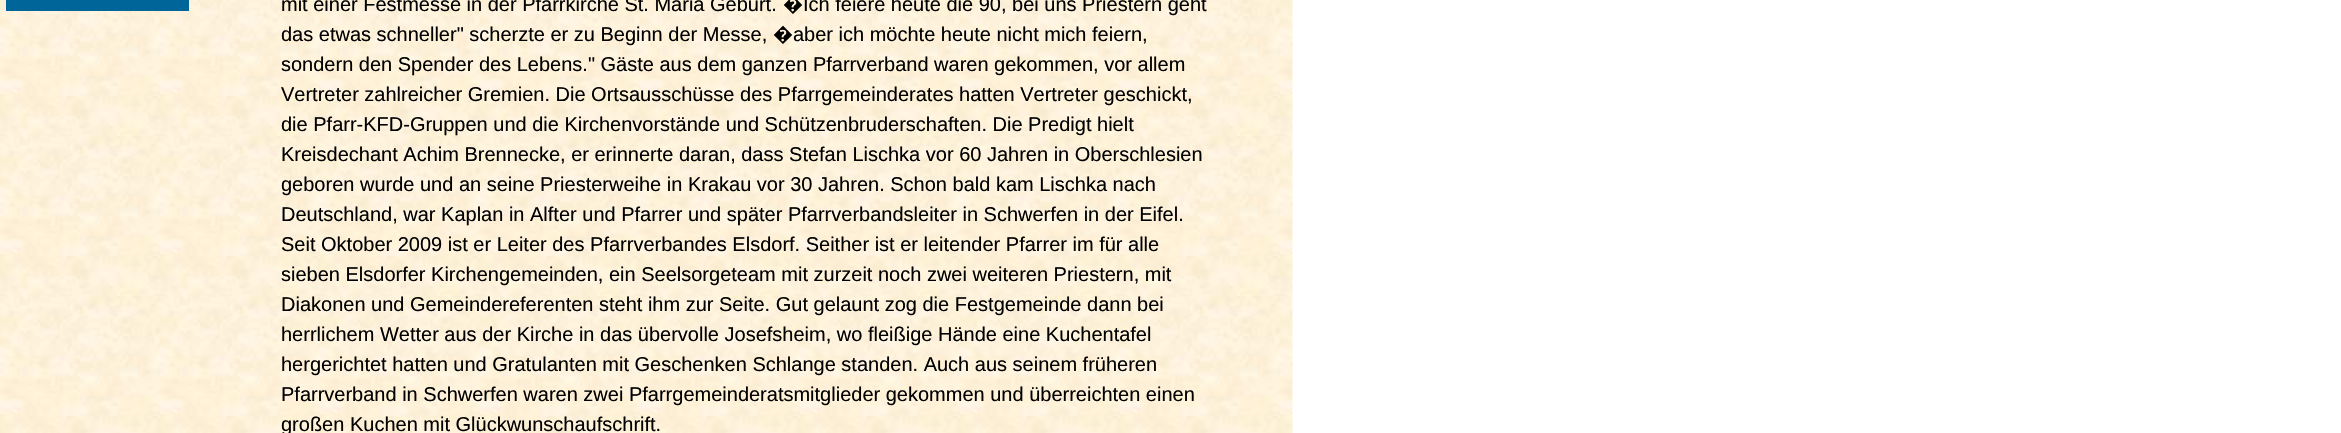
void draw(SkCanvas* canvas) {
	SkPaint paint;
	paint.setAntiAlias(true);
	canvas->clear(0xffffffff);
	canvas->drawImageRect(SkImages::DeferredFromEncodedData(SkData::MakeFromFileName("img1.png")), SkRect::MakeXYWH(0, 0, 1293, 433), SkSamplingOptions());
	paint.setColor(0xff006699);
	canvas->drawRect(SkRect::MakeXYWH(6, 0, 183, 11), paint);
	SkFont f1(fontMgr->matchFamilyStyle("Liberation Sans", SkFontStyle::Normal()), 20);
	f1.setSubpixel(true);
	paint.setColor(0xff000000);
	canvas->drawString("mit einer Festmesse in der Pfarrkirche St. Mariä Geburt.", 281, 11, f1, paint);
	SkFont f2(fontMgr->matchFamilyStyle("Noto Sans", SkFontStyle::Normal()), 20);
	f2.setSubpixel(true);
	canvas->drawString("�", 783, 11, f2, paint);
	canvas->drawString("Ich feiere heute die 90, bei uns Priestern geht", 803, 11, f1, paint);
	canvas->drawString("das etwas schneller\" scherzte er zu Beginn der Messe,", 281, 41, f1, paint);
	canvas->drawString("�", 773, 41, f2, paint);
	canvas->drawString("aber ich möchte heute nicht mich feiern,", 793, 41, f1, paint);
	canvas->drawString("sondern den Spender des Lebens.\" Gäste aus dem ganzen Pfarrverband waren gekommen, vor allem", 281, 71, f1, paint);
	canvas->drawString("Vertreter zahlreicher Gremien. Die Ortsausschüsse des Pfarrgemeinderates hatten Vertreter geschickt,", 281, 101, f1, paint);
	canvas->drawString("die Pfarr-KFD-Gruppen und die Kirchenvorstände und Schützenbruderschaften. Die Predigt hielt", 281, 131, f1, paint);
	canvas->drawString("Kreisdechant Achim Brennecke, er erinnerte daran, dass Stefan Lischka vor 60 Jahren in Oberschlesien", 281, 161, f1, paint);
	canvas->drawString("geboren wurde und an seine Priesterweihe in Krakau vor 30 Jahren. Schon bald kam Lischka nach", 281, 191, f1, paint);
	canvas->drawString("Deutschland, war Kaplan in Alfter und Pfarrer und später Pfarrverbandsleiter in Schwerfen in der Eifel.", 281, 221, f1, paint);
	canvas->drawString("Seit Oktober 2009 ist er Leiter des Pfarrverbandes Elsdorf. Seither ist er leitender Pfarrer im für alle", 281, 251, f1, paint);
	canvas->drawString("sieben Elsdorfer Kirchengemeinden, ein Seelsorgeteam mit zurzeit noch zwei weiteren Priestern, mit", 281, 281, f1, paint);
	canvas->drawString("Diakonen und Gemeindereferenten steht ihm zur Seite. Gut gelaunt zog die Festgemeinde dann bei", 281, 311, f1, paint);
	canvas->drawString("herrlichem Wetter aus der Kirche in das übervolle Josefsheim, wo fleißige Hände eine Kuchentafel", 281, 341, f1, paint);
	canvas->drawString("hergerichtet hatten und Gratulanten mit Geschenken Schlange standen. Auch aus seinem früheren", 281, 371, f1, paint);
	canvas->drawString("Pfarrverband in Schwerfen waren zwei Pfarrgemeinderatsmitglieder gekommen und überreichten einen", 281, 401, f1, paint);
	canvas->drawString("großen Kuchen mit Glückwunschaufschrift.", 281, 431, f1, paint);
}
